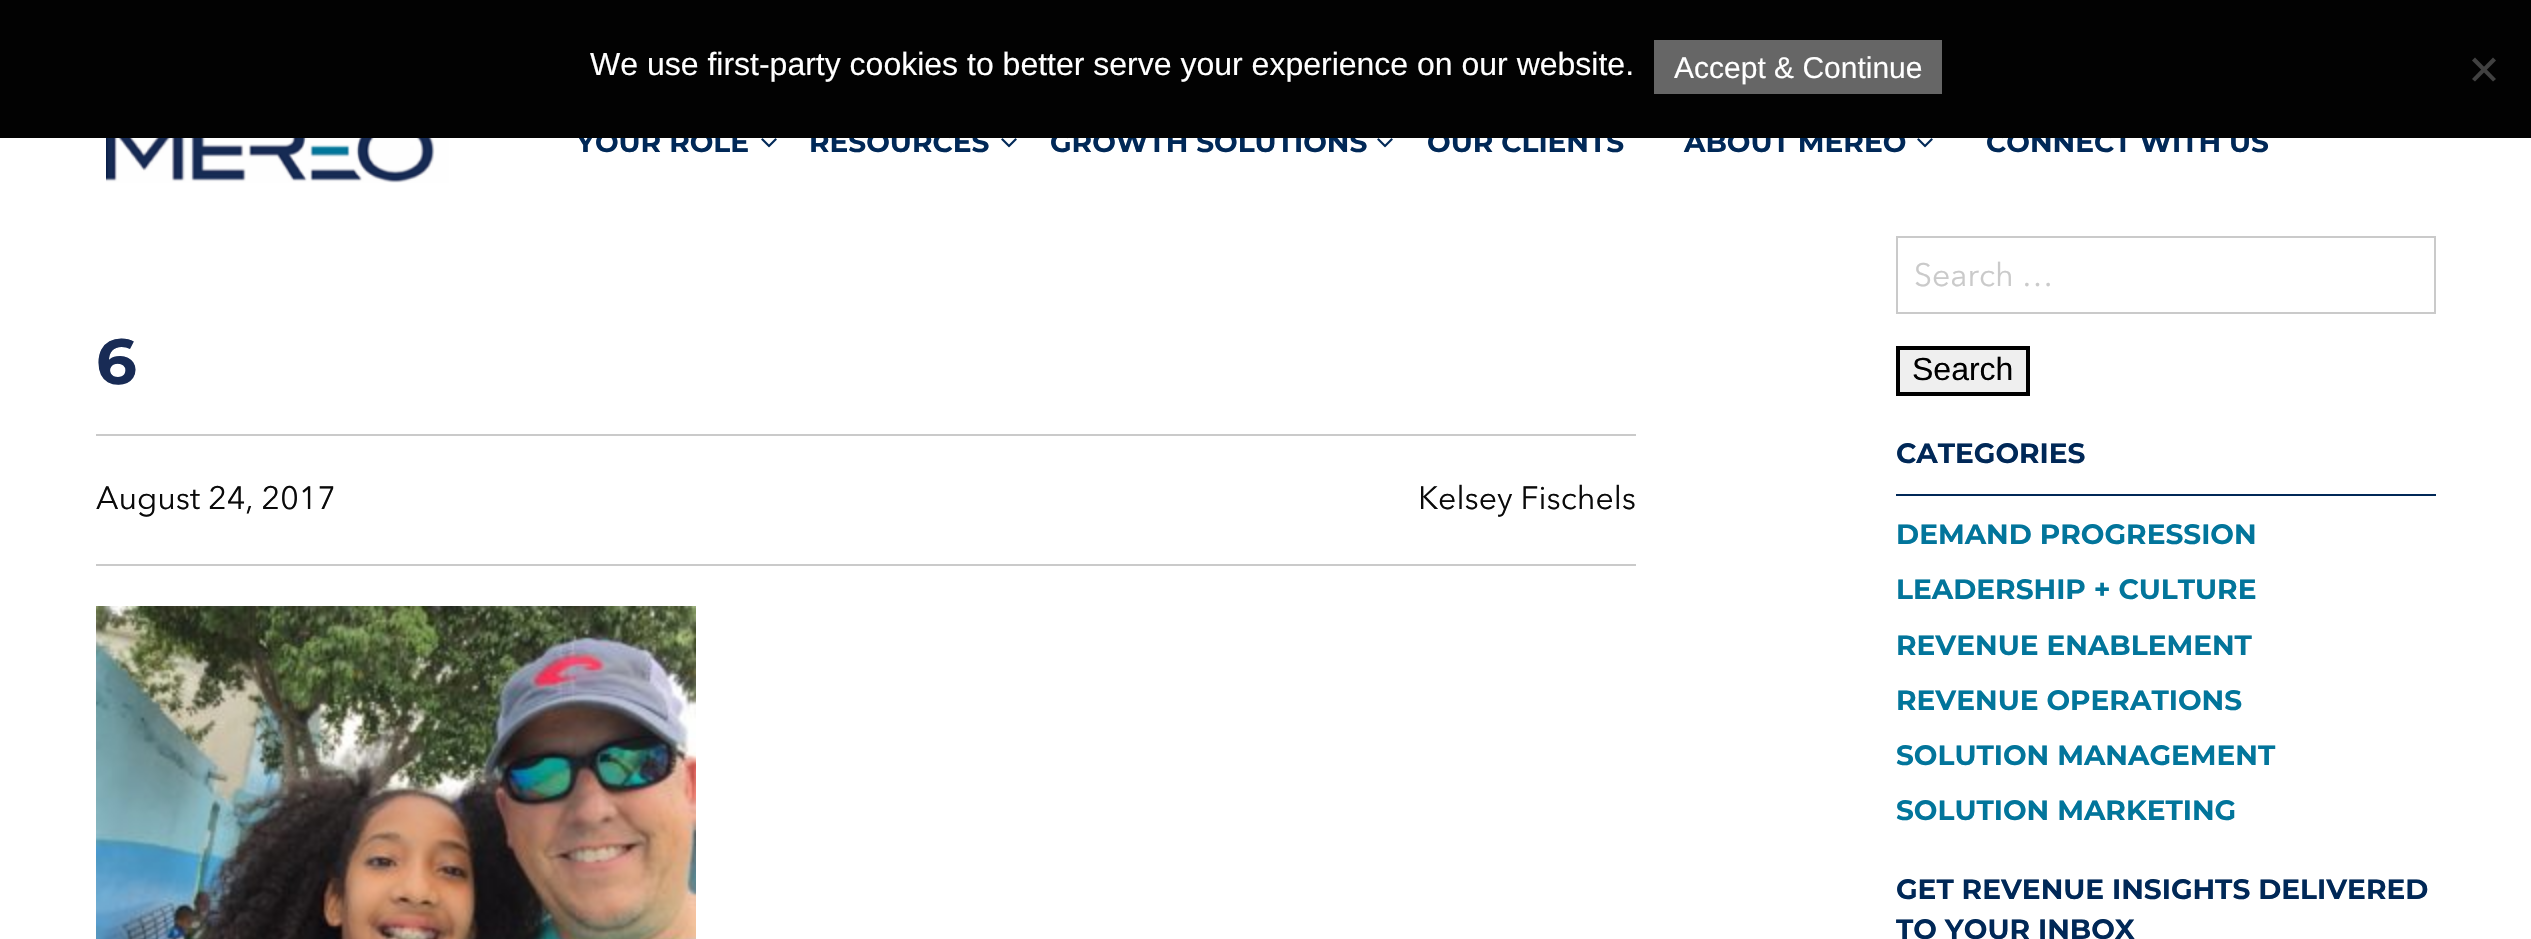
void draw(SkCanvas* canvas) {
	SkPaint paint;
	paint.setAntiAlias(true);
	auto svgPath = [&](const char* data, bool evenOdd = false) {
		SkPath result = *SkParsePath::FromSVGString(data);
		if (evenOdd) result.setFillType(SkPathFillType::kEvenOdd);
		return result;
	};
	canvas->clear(0xffffffff);
	SkFont f1(fontMgr->matchFamilyStyle("Montserrat", SkFontStyle::Bold()), 28);
	f1.setSubpixel(true);
	paint.setColor(0xff002857);
	canvas->drawString("YOUR ROLE", 576, 152, f1, paint);
	canvas->drawString("RESOURCES", 809, 152, f1, paint);
	canvas->drawString("GROWTH SOLUTIONS", 1050, 152, f1, paint);
	canvas->drawString("OUR CLIENTS", 1427, 152, f1, paint);
	canvas->drawString("ABOUT MEREO", 1684, 152, f1, paint);
	canvas->drawString("CONNECT WITH US", 1986, 152, f1, paint);
	paint.setColor(0xff020202);
	canvas->drawRect(SkRect::MakeXYWH(0, 0, 2531, 138), paint);
	SkFont f2(fontMgr->matchFamilyStyle("Liberation Sans", SkFontStyle::Normal()), 32);
	f2.setSubpixel(true);
	paint.setColor(0xffffffff);
	canvas->drawString("We use first-party cookies to better serve your experience on our website.", 590, 75, f2, paint);
	paint.setColor(0xff666666);
	canvas->drawRect(SkRect::MakeXYWH(1654, 40, 288, 54), paint);
	SkFont f3(fontMgr->matchFamilyStyle("Liberation Sans", SkFontStyle::Normal()), 30);
	f3.setSubpixel(true);
	paint.setColor(0xffffffff);
	canvas->drawString("Accept & Continue", 1674, 78, f3, paint);
	paint.setColor(0xff414141);
	canvas->drawPath(svgPath("M2493 57.5L2496 60.5L2475 81.5L2472 79Z"), paint);
	canvas->drawPath(svgPath("M2472 60.5L2475 57.5L2496 79L2493 81.5Z"), paint);
	canvas->drawImageRect(SkImages::DeferredFromEncodedData(SkData::MakeFromFileName("img1.png")), SkRect::MakeXYWH(106, 138, 343, 45), SkSamplingOptions());
	canvas->drawImageRect(SkImages::DeferredFromEncodedData(SkData::MakeFromFileName("img2.png")), SkRect::MakeXYWH(761, 138, 16, 10), SkSamplingOptions());
	canvas->drawImageRect(SkImages::DeferredFromEncodedData(SkData::MakeFromFileName("img2.png")), SkRect::MakeXYWH(1001, 138, 16, 10), SkSamplingOptions());
	canvas->drawImageRect(SkImages::DeferredFromEncodedData(SkData::MakeFromFileName("img2.png")), SkRect::MakeXYWH(1377, 138, 16, 10), SkSamplingOptions());
	canvas->drawImageRect(SkImages::DeferredFromEncodedData(SkData::MakeFromFileName("img2.png")), SkRect::MakeXYWH(1917, 138, 16, 10), SkSamplingOptions());
	SkFont f4(fontMgr->matchFamilyStyle("Montserrat", SkFontStyle::Bold()), 64);
	f4.setSubpixel(true);
	paint.setColor(0xff182b55);
	canvas->drawString("6", 96, 384, f4, paint);
	paint.setColor(0xffcacaca);
	canvas->drawRect(SkRect::MakeXYWH(96, 434, 1540, 2), paint);
	SkFont f5(fontMgr->matchFamilyStyle("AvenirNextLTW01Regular", SkFontStyle::Normal()), 32);
	f5.setSubpixel(true);
	paint.setColor(0xff0a0a0a);
	canvas->drawString("August 24, 2017", 96, 509, f5, paint);
	canvas->drawString("Kelsey Fischels", 1418, 509, f5, paint);
	paint.setColor(0xffcacaca);
	canvas->drawRect(SkRect::MakeXYWH(96, 564, 1540, 2), paint);
	canvas->drawImageRect(SkImages::DeferredFromEncodedData(SkData::MakeFromFileName("img3.png")), SkRect::MakeXYWH(96, 606, 600, 333), SkSamplingOptions());
	paint.setStroke(true);
	paint.setStrokeWidth(2);
	canvas->drawRect(SkRect::MakeXYWH(1897, 237, 538, 76), paint);
	paint.setStroke(false);
	canvas->drawString("Search …", 1914, 286, f5, paint);
	paint.setColor(0xffefefef);
	canvas->drawRect(SkRect::MakeXYWH(1898, 348, 130, 46), paint);
	paint.setStroke(true);
	paint.setStrokeWidth(4);
	paint.setColor(0xff000000);
	canvas->drawRect(SkRect::MakeXYWH(1898, 348, 130, 46), paint);
	paint.setStroke(false);
	canvas->drawString("Search", 1912, 380, f2, paint);
	paint.setColor(0xff002857);
	canvas->drawRect(SkRect::MakeXYWH(1896, 494, 540, 2), paint);
	canvas->drawString("CATEGORIES", 1896, 463, f1, paint);
	paint.setColor(0xff02759b);
	canvas->drawString("DEMAND PROGRESSION", 1896, 544, f1, paint);
	canvas->drawString("LEADERSHIP + CULTURE", 1896, 599, f1, paint);
	canvas->drawString("REVENUE ENABLEMENT", 1896, 655, f1, paint);
	canvas->drawString("REVENUE OPERATIONS", 1896, 710, f1, paint);
	canvas->drawString("SOLUTION MANAGEMENT", 1896, 765, f1, paint);
	canvas->drawString("SOLUTION MARKETING", 1896, 820, f1, paint);
	paint.setColor(0xff002857);
	canvas->drawString("GET REVENUE INSIGHTS DELIVERED", 1896, 899, f1, paint);
	canvas->drawString("TO YOUR INBOX", 1896, 939, f1, paint);
}
